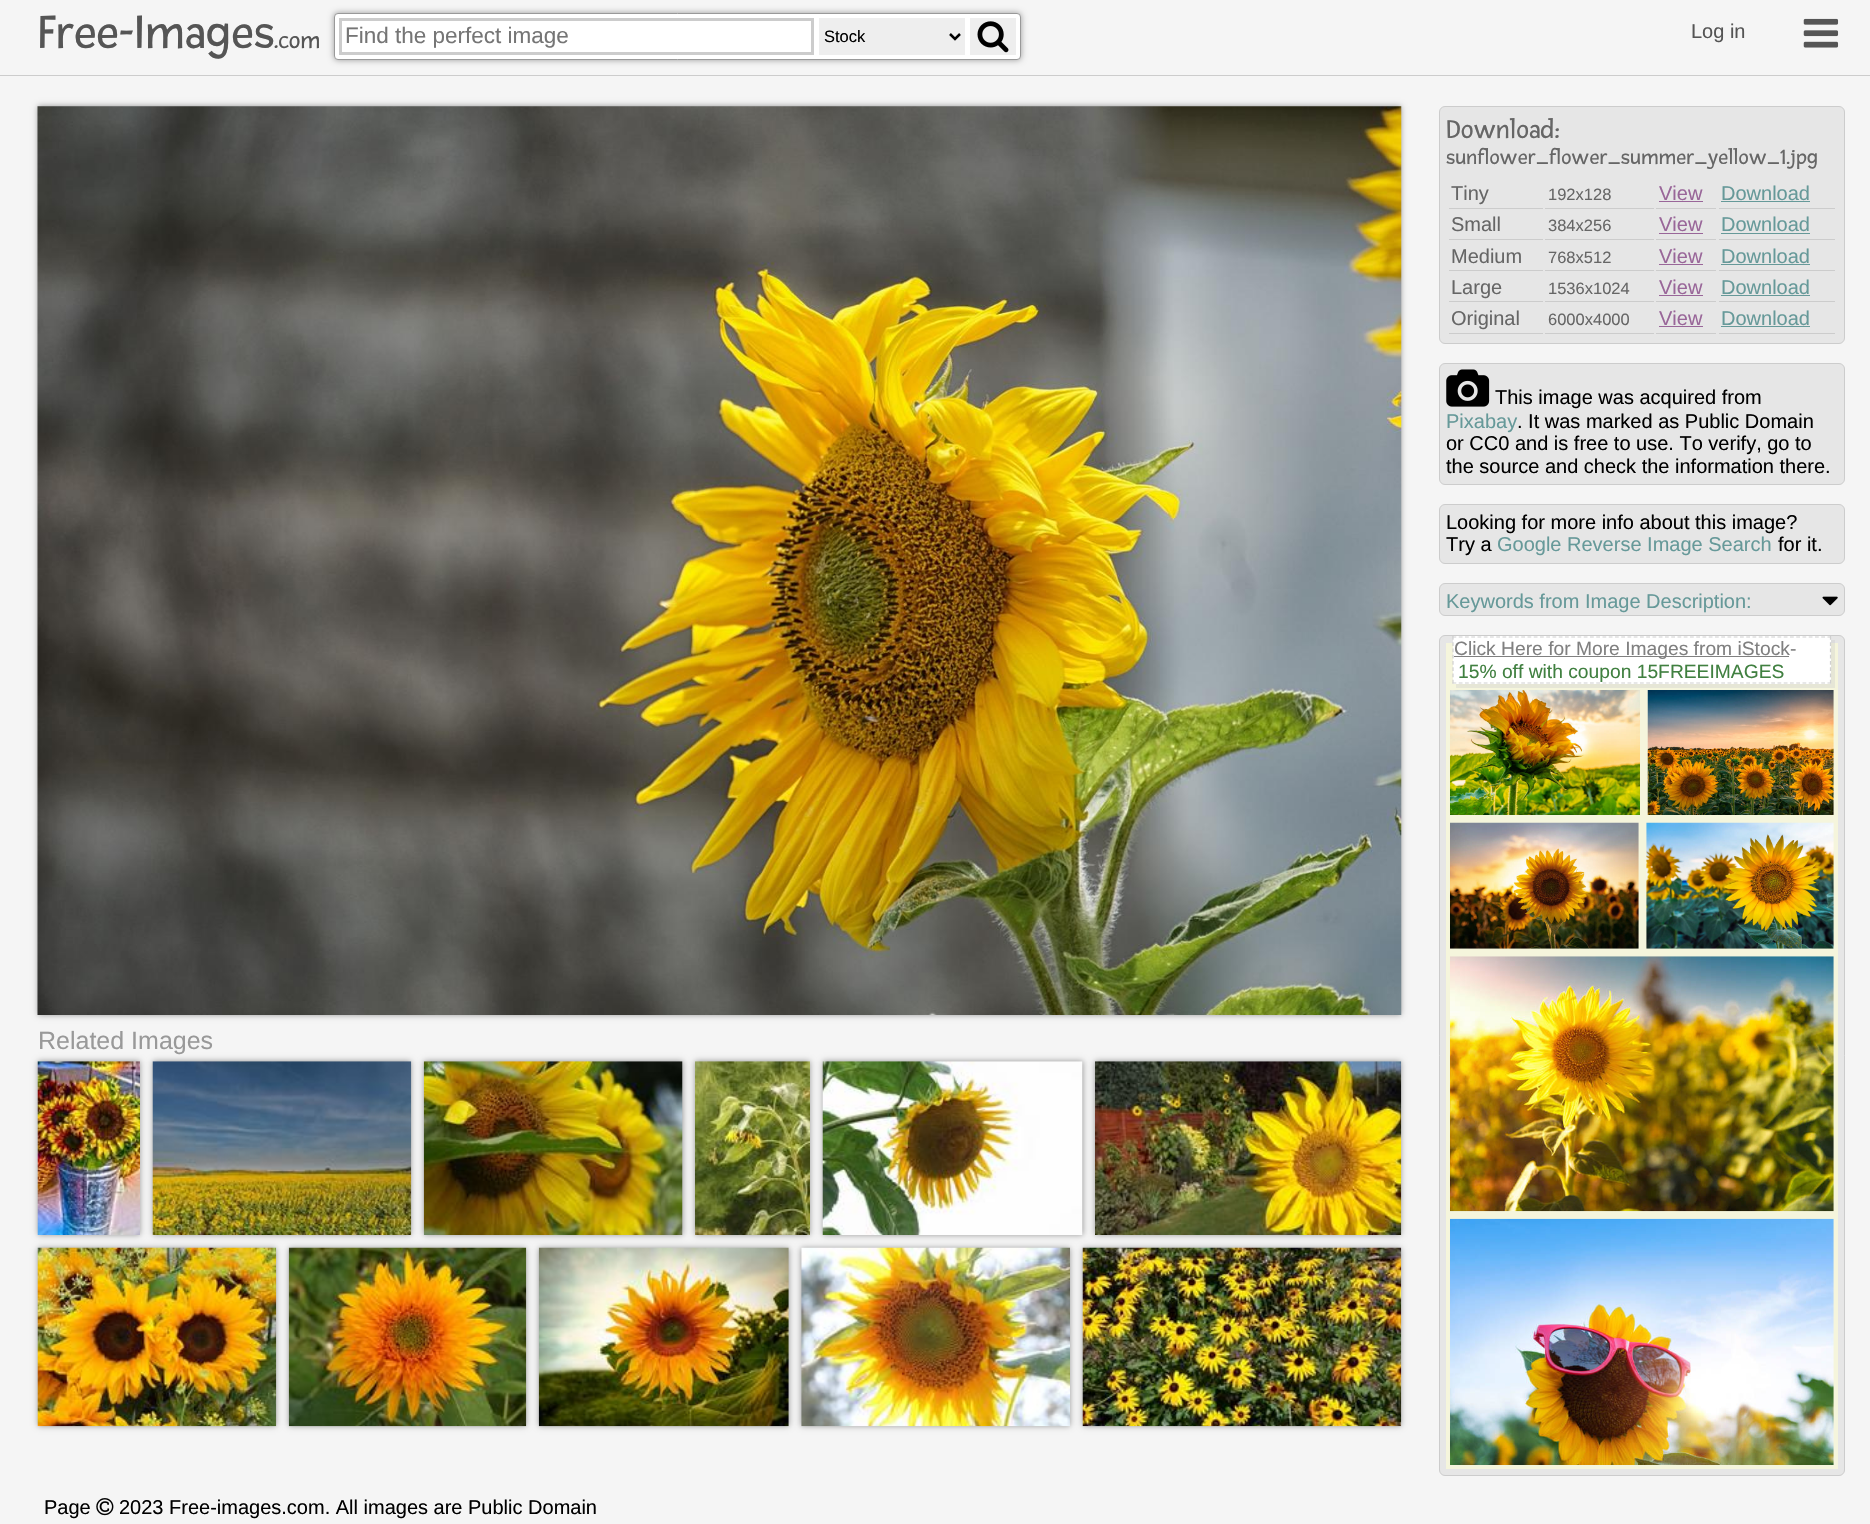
void draw(SkCanvas* canvas) {
	SkPaint paint;
	paint.setAntiAlias(true);
	auto svgPath = [&](const char* data, bool evenOdd = false) {
		SkPath result = *SkParsePath::FromSVGString(data);
		if (evenOdd) result.setFillType(SkPathFillType::kEvenOdd);
		return result;
	};
	canvas->clear(0xfff5f5f5);
	paint.setColor(0xffcccccc);
	canvas->drawRect(SkRect::MakeXYWH(0, 75, 1870, 1), paint);
	SkFont f1(fontMgr->matchFamilyStyle("Fresca", SkFontStyle::Normal()), 50);
	f1.setSubpixel(true);
	paint.setColor(0xff555555);
	canvas->drawString("Free-Images", 38, 48, f1, paint);
	SkFont f2(fontMgr->matchFamilyStyle("Fresca", SkFontStyle::Normal()), 25);
	f2.setSubpixel(true);
	canvas->drawString(".com", 274, 48, f2, paint);
	paint.setColor(0xff999999);
	paint.setMaskFilter(SkMaskFilter::MakeBlur(kNormal_SkBlurStyle, 3));
	canvas->drawRoundRect(SkRect::MakeXYWH(334, 13, 687, 47), 4, 4, paint);
	paint.setMaskFilter(nullptr);
	paint.setColor(0xffffffff);
	canvas->drawRoundRect(SkRect::MakeXYWH(334.5, 13.5, 686, 46), 3.5, 3.5, paint);
	paint.setStroke(true);
	paint.setStrokeWidth(1);
	paint.setColor(0xff999999);
	canvas->drawRoundRect(SkRect::MakeXYWH(334.5, 13.5, 686, 46), 3.5, 3.5, paint);
	paint.setStrokeWidth(3);
	paint.setColor(0xffcccccc);
	canvas->drawRect(SkRect::MakeXYWH(340.5, 19.5, 472, 34), paint);
	SkFont f3(fontMgr->matchFamilyStyle("Liberation Sans", SkFontStyle::Normal()), 22.5);
	f3.setSubpixel(true);
	paint.setStroke(false);
	paint.setColor(0xff757575);
	canvas->drawString("Find the perfect image", 345, 43, f3, paint);
	paint.setColor(0xffeeeeee);
	canvas->drawRect(SkRect::MakeXYWH(819, 18, 146, 37), paint);
	paint.setStroke(true);
	paint.setStrokeWidth(2.5);
	paint.setColor(0xff000000);
	canvas->drawPath(svgPath("M950 34L955 39L960 34"), paint);
	SkFont f4(fontMgr->matchFamilyStyle("Liberation Sans", SkFontStyle::Normal()), 16.5);
	f4.setSubpixel(true);
	paint.setStroke(false);
	canvas->drawString("Stock", 824, 42, f4, paint);
	paint.setColor(0xffeeeeee);
	canvas->drawRect(SkRect::MakeXYWH(970, 18, 46, 37), paint);
	canvas->drawImageRect(SkImages::DeferredFromEncodedData(SkData::MakeFromFileName("img1.png")), SkRect::MakeXYWH(977, 21, 32, 32), SkSamplingOptions());
	SkFont f5(fontMgr->matchFamilyStyle("Liberation Sans", SkFontStyle::Normal()), 20);
	f5.setSubpixel(true);
	paint.setColor(0xff555555);
	canvas->drawString("Log in", 1691, 38, f5, paint);
	canvas->drawImageRect(SkImages::DeferredFromEncodedData(SkData::MakeFromFileName("img2.png")), SkRect::MakeXYWH(1803, 18, 36, 30), SkSamplingOptions());
	paint.setColor(0xffe6e6e6);
	canvas->drawRoundRect(SkRect::MakeXYWH(1439.5, 106.5, 405, 237), 5.5, 5.5, paint);
	paint.setStroke(true);
	paint.setStrokeWidth(1);
	paint.setColor(0xffcccccc);
	canvas->drawRoundRect(SkRect::MakeXYWH(1439.5, 106.5, 405, 237), 5.5, 5.5, paint);
	SkFont f6(fontMgr->matchFamilyStyle("Fresca", SkFontStyle::Normal()), 27.5);
	f6.setSubpixel(true);
	paint.setStroke(false);
	paint.setColor(0xff666666);
	canvas->drawString("Download:", 1446, 138, f6, paint);
	SkFont f7(fontMgr->matchFamilyStyle("Fresca", SkFontStyle::Normal()), 22);
	f7.setSubpixel(true);
	canvas->drawString("sunflower_flower_summer_yellow_1.jpg", 1446, 164, f7, paint);
	paint.setColor(0xffcccccc);
	canvas->drawRect(SkRect::MakeXYWH(1449, 208, 94, 1), paint);
	paint.setColor(0xff666666);
	canvas->drawString("Tiny", 1451, 200, f5, paint);
	paint.setColor(0xffcccccc);
	canvas->drawRect(SkRect::MakeXYWH(1545, 208, 109, 1), paint);
	paint.setColor(0xff666666);
	canvas->drawString("192x128", 1548, 200, f4, paint);
	paint.setColor(0xffcccccc);
	canvas->drawRect(SkRect::MakeXYWH(1656, 208, 60, 1), paint);
	paint.setColor(0xff996699);
	canvas->drawString("View", 1659, 200, f5, paint);
	canvas->drawRect(SkRect::MakeXYWH(1659, 201, 44, 1), paint);
	paint.setColor(0xffcccccc);
	canvas->drawRect(SkRect::MakeXYWH(1719, 208, 116, 1), paint);
	paint.setColor(0xff669999);
	canvas->drawString("Download", 1721, 200, f5, paint);
	canvas->drawRect(SkRect::MakeXYWH(1721, 201, 89, 1), paint);
	paint.setColor(0xffcccccc);
	canvas->drawRect(SkRect::MakeXYWH(1449, 239, 94, 1), paint);
	paint.setColor(0xff666666);
	canvas->drawString("Small", 1451, 231, f5, paint);
	paint.setColor(0xffcccccc);
	canvas->drawRect(SkRect::MakeXYWH(1545, 239, 109, 1), paint);
	paint.setColor(0xff666666);
	canvas->drawString("384x256", 1548, 231, f4, paint);
	paint.setColor(0xffcccccc);
	canvas->drawRect(SkRect::MakeXYWH(1656, 239, 60, 1), paint);
	paint.setColor(0xff996699);
	canvas->drawString("View", 1659, 231, f5, paint);
	canvas->drawRect(SkRect::MakeXYWH(1659, 233, 44, 1), paint);
	paint.setColor(0xffcccccc);
	canvas->drawRect(SkRect::MakeXYWH(1719, 239, 116, 1), paint);
	paint.setColor(0xff669999);
	canvas->drawString("Download", 1721, 231, f5, paint);
	canvas->drawRect(SkRect::MakeXYWH(1721, 233, 89, 1), paint);
	paint.setColor(0xffcccccc);
	canvas->drawRect(SkRect::MakeXYWH(1449, 270, 94, 1), paint);
	paint.setColor(0xff666666);
	canvas->drawString("Medium", 1451, 263, f5, paint);
	paint.setColor(0xffcccccc);
	canvas->drawRect(SkRect::MakeXYWH(1545, 270, 109, 1), paint);
	paint.setColor(0xff666666);
	canvas->drawString("768x512", 1548, 263, f4, paint);
	paint.setColor(0xffcccccc);
	canvas->drawRect(SkRect::MakeXYWH(1656, 270, 60, 1), paint);
	paint.setColor(0xff996699);
	canvas->drawString("View", 1659, 263, f5, paint);
	canvas->drawRect(SkRect::MakeXYWH(1659, 264, 44, 1), paint);
	paint.setColor(0xffcccccc);
	canvas->drawRect(SkRect::MakeXYWH(1719, 270, 116, 1), paint);
	paint.setColor(0xff669999);
	canvas->drawString("Download", 1721, 263, f5, paint);
	canvas->drawRect(SkRect::MakeXYWH(1721, 264, 89, 1), paint);
	paint.setColor(0xffcccccc);
	canvas->drawRect(SkRect::MakeXYWH(1449, 301, 94, 1), paint);
	paint.setColor(0xff666666);
	canvas->drawString("Large", 1451, 294, f5, paint);
	paint.setColor(0xffcccccc);
	canvas->drawRect(SkRect::MakeXYWH(1545, 301, 109, 1), paint);
	paint.setColor(0xff666666);
	canvas->drawString("1536x1024", 1548, 294, f4, paint);
	paint.setColor(0xffcccccc);
	canvas->drawRect(SkRect::MakeXYWH(1656, 301, 60, 1), paint);
	paint.setColor(0xff996699);
	canvas->drawString("View", 1659, 294, f5, paint);
	canvas->drawRect(SkRect::MakeXYWH(1659, 295, 44, 1), paint);
	paint.setColor(0xffcccccc);
	canvas->drawRect(SkRect::MakeXYWH(1719, 301, 116, 1), paint);
	paint.setColor(0xff669999);
	canvas->drawString("Download", 1721, 294, f5, paint);
	canvas->drawRect(SkRect::MakeXYWH(1721, 295, 89, 1), paint);
	paint.setColor(0xffcccccc);
	canvas->drawRect(SkRect::MakeXYWH(1449, 333, 94, 1), paint);
	paint.setColor(0xff666666);
	canvas->drawString("Original", 1451, 325, f5, paint);
	paint.setColor(0xffcccccc);
	canvas->drawRect(SkRect::MakeXYWH(1545, 333, 109, 1), paint);
	paint.setColor(0xff666666);
	canvas->drawString("6000x4000", 1548, 325, f4, paint);
	paint.setColor(0xffcccccc);
	canvas->drawRect(SkRect::MakeXYWH(1656, 333, 60, 1), paint);
	paint.setColor(0xff996699);
	canvas->drawString("View", 1659, 325, f5, paint);
	canvas->drawRect(SkRect::MakeXYWH(1659, 326, 44, 1), paint);
	paint.setColor(0xffcccccc);
	canvas->drawRect(SkRect::MakeXYWH(1719, 333, 116, 1), paint);
	paint.setColor(0xff669999);
	canvas->drawString("Download", 1721, 325, f5, paint);
	canvas->drawRect(SkRect::MakeXYWH(1721, 326, 89, 1), paint);
	paint.setColor(0xffe6e6e6);
	canvas->drawRoundRect(SkRect::MakeXYWH(1439.5, 363.5, 405, 121), 5.5, 5.5, paint);
	paint.setStroke(true);
	paint.setColor(0xffcccccc);
	canvas->drawRoundRect(SkRect::MakeXYWH(1439.5, 363.5, 405, 121), 5.5, 5.5, paint);
	canvas->drawImageRect(SkImages::DeferredFromEncodedData(SkData::MakeFromFileName("img3.png")), SkRect::MakeXYWH(1446, 369, 44, 38), SkSamplingOptions());
	paint.setStroke(false);
	paint.setColor(0xff000000);
	canvas->drawString("This image was acquired from", 1495, 404, f5, paint);
	paint.setColor(0xff669999);
	canvas->drawString("Pixabay", 1446, 428, f5, paint);
	paint.setColor(0xff000000);
	canvas->drawString(". It was marked as Public Domain", 1517, 428, f5, paint);
	canvas->drawString("or CC0 and is free to use. To verify, go to", 1446, 450, f5, paint);
	canvas->drawString("the source and check the information there.", 1446, 473, f5, paint);
	paint.setColor(0xffe6e6e6);
	canvas->drawRoundRect(SkRect::MakeXYWH(1439.5, 504.5, 405, 59), 5.5, 5.5, paint);
	paint.setStroke(true);
	paint.setColor(0xffcccccc);
	canvas->drawRoundRect(SkRect::MakeXYWH(1439.5, 504.5, 405, 59), 5.5, 5.5, paint);
	paint.setStroke(false);
	paint.setColor(0xff000000);
	canvas->drawString("Looking for more info about this image?", 1446, 529, f5, paint);
	canvas->drawString("Try a", 1446, 551, f5, paint);
	paint.setColor(0xff669999);
	canvas->drawString("Google Reverse Image Search", 1497, 551, f5, paint);
	paint.setColor(0xff000000);
	canvas->drawString("for it.", 1778, 551, f5, paint);
	paint.setColor(0xffe6e6e6);
	canvas->drawRoundRect(SkRect::MakeXYWH(1439.5, 583.5, 405, 32), 5.5, 5.5, paint);
	paint.setStroke(true);
	paint.setColor(0xffcccccc);
	canvas->drawRoundRect(SkRect::MakeXYWH(1439.5, 583.5, 405, 32), 5.5, 5.5, paint);
	paint.setStroke(false);
	paint.setColor(0xff669999);
	canvas->drawString("Keywords from Image Description:", 1446, 608, f5, paint);
	canvas->drawImageRect(SkImages::DeferredFromEncodedData(SkData::MakeFromFileName("img4.png")), SkRect::MakeXYWH(1822, 596, 16, 10), SkSamplingOptions());
	paint.setColor(0xffe6e6e6);
	canvas->drawRoundRect(SkRect::MakeXYWH(1439.5, 635.5, 405, 840), 5.5, 5.5, paint);
	paint.setStroke(true);
	paint.setColor(0xffcccccc);
	canvas->drawRoundRect(SkRect::MakeXYWH(1439.5, 635.5, 405, 840), 5.5, 5.5, paint);
	paint.setStroke(false);
	paint.setColor(0xfff5f5dc);
	canvas->drawRect(SkRect::MakeXYWH(1446, 643, 392, 826), paint);
	paint.setColor(0x61cccccc);
	canvas->drawPath(svgPath("M1456 684V688H1835V640H1831V684Z"), paint);
	paint.setColor(0xffffffff);
	canvas->drawRect(SkRect::MakeXYWH(1453, 636, 378, 48), paint);
	paint.setStroke(true);
	paint.setStrokeWidth(1.2);
	paint.setColor(0xffd0d0d0);
	paint.setPathEffect(SkDashPathEffect::Make({{3.75f, 2.5f}}, 0));
	canvas->drawPath(svgPath("M1452.5 637H1831"), paint);
	paint.setPathEffect(nullptr);
	paint.setPathEffect(SkDashPathEffect::Make({{3.75f, 2.5f}}, 0));
	canvas->drawPath(svgPath("M1830.5 636V684"), paint);
	paint.setPathEffect(nullptr);
	paint.setPathEffect(SkDashPathEffect::Make({{3.75f, 2.5f}}, 0));
	canvas->drawPath(svgPath("M1452.5 683H1831"), paint);
	paint.setPathEffect(nullptr);
	paint.setPathEffect(SkDashPathEffect::Make({{3.75f, 2.5f}}, 0));
	canvas->drawPath(svgPath("M1453 636V684"), paint);
	paint.setPathEffect(nullptr);
	paint.setStroke(false);
	paint.setColor(0xff808080);
	canvas->drawRect(SkRect::MakeXYWH(1454, 656, 335, 1), paint);
	SkFont f8(fontMgr->matchFamilyStyle("Liberation Sans", SkFontStyle::Normal()), 19.25);
	f8.setSubpixel(true);
	canvas->drawString("Click Here for More Images from iStock-", 1454, 655, f8, paint);
	paint.setColor(0xff408040);
	canvas->drawString("15% off with coupon 15FREEIMAGES", 1458, 678, f8, paint);
	canvas->drawImageRect(SkImages::DeferredFromEncodedData(SkData::MakeFromFileName("img5.png")), SkRect::MakeXYWH(1450, 690, 190, 125), SkSamplingOptions());
	canvas->drawImageRect(SkImages::DeferredFromEncodedData(SkData::MakeFromFileName("img6.png")), SkRect::MakeXYWH(1647, 690, 187, 125), SkSamplingOptions());
	canvas->drawImageRect(SkImages::DeferredFromEncodedData(SkData::MakeFromFileName("img7.png")), SkRect::MakeXYWH(1450, 822, 189, 127), SkSamplingOptions());
	canvas->drawImageRect(SkImages::DeferredFromEncodedData(SkData::MakeFromFileName("img8.png")), SkRect::MakeXYWH(1646, 822, 188, 127), SkSamplingOptions());
	canvas->drawImageRect(SkImages::DeferredFromEncodedData(SkData::MakeFromFileName("img9.png")), SkRect::MakeXYWH(1450, 956, 384, 256), SkSamplingOptions());
	canvas->drawImageRect(SkImages::DeferredFromEncodedData(SkData::MakeFromFileName("img10.png")), SkRect::MakeXYWH(1450, 1218, 384, 247), SkSamplingOptions());
	paint.setColor(0xff999999);
	paint.setMaskFilter(SkMaskFilter::MakeBlur(kNormal_SkBlurStyle, 3));
	canvas->drawRect(SkRect::MakeXYWH(38, 106, 1363, 909), paint);
	paint.setMaskFilter(nullptr);
	canvas->drawImageRect(SkImages::DeferredFromEncodedData(SkData::MakeFromFileName("img11.png")), SkRect::MakeXYWH(37, 106, 1365, 909), SkSamplingOptions());
	SkFont f9(fontMgr->matchFamilyStyle("Liberation Sans", SkFontStyle::Normal()), 25);
	f9.setSubpixel(true);
	canvas->drawString("Related Images", 38, 1049, f9, paint);
	paint.setMaskFilter(SkMaskFilter::MakeBlur(kNormal_SkBlurStyle, 3));
	canvas->drawRect(SkRect::MakeXYWH(38, 1061, 102, 174), paint);
	paint.setMaskFilter(nullptr);
	canvas->drawImageRect(SkImages::DeferredFromEncodedData(SkData::MakeFromFileName("img12.png")), SkRect::MakeXYWH(37, 1061, 103, 174), SkSamplingOptions());
	paint.setMaskFilter(SkMaskFilter::MakeBlur(kNormal_SkBlurStyle, 3));
	canvas->drawRect(SkRect::MakeXYWH(153, 1061, 258, 174), paint);
	paint.setMaskFilter(nullptr);
	canvas->drawImageRect(SkImages::DeferredFromEncodedData(SkData::MakeFromFileName("img13.png")), SkRect::MakeXYWH(152, 1061, 260, 174), SkSamplingOptions());
	paint.setMaskFilter(SkMaskFilter::MakeBlur(kNormal_SkBlurStyle, 3));
	canvas->drawRect(SkRect::MakeXYWH(424, 1061, 259, 174), paint);
	paint.setMaskFilter(nullptr);
	canvas->drawImageRect(SkImages::DeferredFromEncodedData(SkData::MakeFromFileName("img14.png")), SkRect::MakeXYWH(423, 1061, 260, 174), SkSamplingOptions());
	paint.setMaskFilter(SkMaskFilter::MakeBlur(kNormal_SkBlurStyle, 3));
	canvas->drawRect(SkRect::MakeXYWH(695, 1061, 115, 174), paint);
	paint.setMaskFilter(nullptr);
	canvas->drawImageRect(SkImages::DeferredFromEncodedData(SkData::MakeFromFileName("img15.png")), SkRect::MakeXYWH(695, 1061, 115, 174), SkSamplingOptions());
	paint.setMaskFilter(SkMaskFilter::MakeBlur(kNormal_SkBlurStyle, 3));
	canvas->drawRect(SkRect::MakeXYWH(823, 1061, 260, 174), paint);
	paint.setMaskFilter(nullptr);
	canvas->drawImageRect(SkImages::DeferredFromEncodedData(SkData::MakeFromFileName("img16.png")), SkRect::MakeXYWH(822, 1061, 261, 174), SkSamplingOptions());
	paint.setMaskFilter(SkMaskFilter::MakeBlur(kNormal_SkBlurStyle, 3));
	canvas->drawRect(SkRect::MakeXYWH(1095, 1061, 306, 174), paint);
	paint.setMaskFilter(nullptr);
	canvas->drawImageRect(SkImages::DeferredFromEncodedData(SkData::MakeFromFileName("img17.png")), SkRect::MakeXYWH(1095, 1061, 307, 174), SkSamplingOptions());
	paint.setMaskFilter(SkMaskFilter::MakeBlur(kNormal_SkBlurStyle, 3));
	canvas->drawRect(SkRect::MakeXYWH(38, 1248, 238, 178), paint);
	paint.setMaskFilter(nullptr);
	canvas->drawImageRect(SkImages::DeferredFromEncodedData(SkData::MakeFromFileName("img18.png")), SkRect::MakeXYWH(37, 1247, 240, 180), SkSamplingOptions());
	paint.setMaskFilter(SkMaskFilter::MakeBlur(kNormal_SkBlurStyle, 3));
	canvas->drawRect(SkRect::MakeXYWH(289, 1248, 237, 178), paint);
	paint.setMaskFilter(nullptr);
	canvas->drawImageRect(SkImages::DeferredFromEncodedData(SkData::MakeFromFileName("img19.png")), SkRect::MakeXYWH(288, 1247, 239, 180), SkSamplingOptions());
	paint.setMaskFilter(SkMaskFilter::MakeBlur(kNormal_SkBlurStyle, 3));
	canvas->drawRect(SkRect::MakeXYWH(539, 1248, 250, 178), paint);
	paint.setMaskFilter(nullptr);
	canvas->drawImageRect(SkImages::DeferredFromEncodedData(SkData::MakeFromFileName("img20.png")), SkRect::MakeXYWH(538, 1247, 251, 180), SkSamplingOptions());
	paint.setMaskFilter(SkMaskFilter::MakeBlur(kNormal_SkBlurStyle, 3));
	canvas->drawRect(SkRect::MakeXYWH(801, 1248, 269, 178), paint);
	paint.setMaskFilter(nullptr);
	canvas->drawImageRect(SkImages::DeferredFromEncodedData(SkData::MakeFromFileName("img21.png")), SkRect::MakeXYWH(801, 1247, 269, 180), SkSamplingOptions());
	paint.setMaskFilter(SkMaskFilter::MakeBlur(kNormal_SkBlurStyle, 3));
	canvas->drawRect(SkRect::MakeXYWH(1083, 1248, 318, 178), paint);
	paint.setMaskFilter(nullptr);
	canvas->drawImageRect(SkImages::DeferredFromEncodedData(SkData::MakeFromFileName("img22.png")), SkRect::MakeXYWH(1082, 1247, 320, 180), SkSamplingOptions());
	paint.setColor(0xff000000);
	canvas->drawString("Page", 44, 1514, f5, paint);
	canvas->drawImageRect(SkImages::DeferredFromEncodedData(SkData::MakeFromFileName("img23.png")), SkRect::MakeXYWH(96, 1498, 18, 18), SkSamplingOptions());
	canvas->drawString("2023 Free-images.com. All images are Public Domain", 119, 1514, f5, paint);
}
